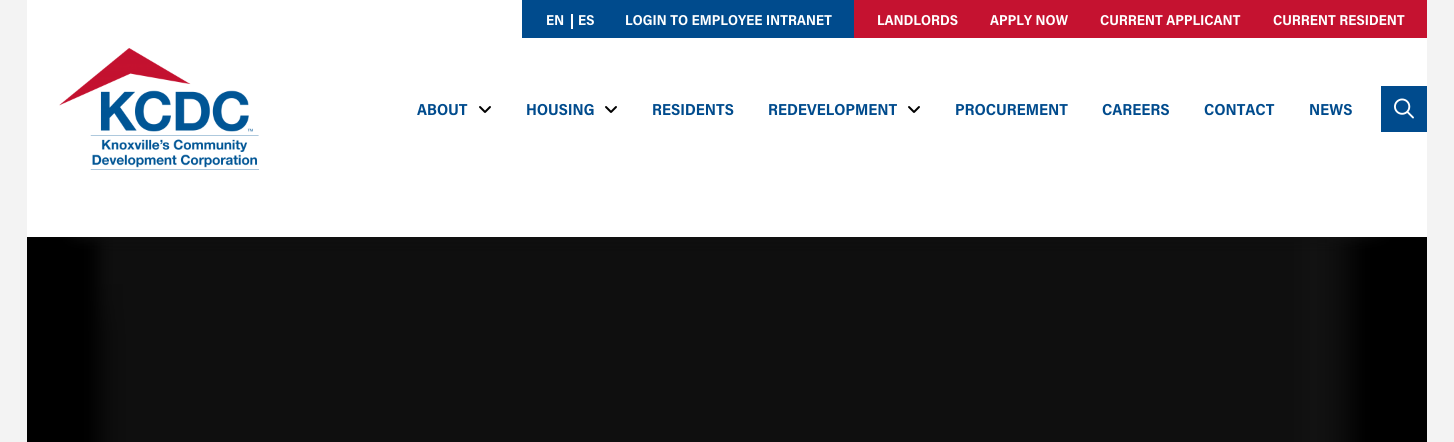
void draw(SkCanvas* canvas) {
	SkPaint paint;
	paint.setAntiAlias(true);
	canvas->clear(0xfff3f3f3);
	paint.setColor(0xffffffff);
	canvas->drawRect(SkRect::MakeXYWH(27, 0, 1400, 239), paint);
	paint.setColor(0xff004b8d);
	canvas->drawRect(SkRect::MakeXYWH(522, 0, 332, 38), paint);
	canvas->drawImageRect(SkImages::DeferredFromEncodedData(SkData::MakeFromFileName("img1.png")), SkRect::MakeXYWH(547, 15, 17, 10), SkSamplingOptions());
	paint.setColor(0xffffffff);
	canvas->drawRect(SkRect::MakeXYWH(571, 14, 2, 15), paint);
	canvas->drawImageRect(SkImages::DeferredFromEncodedData(SkData::MakeFromFileName("img2.png")), SkRect::MakeXYWH(579, 15, 15, 11), SkSamplingOptions());
	canvas->drawImageRect(SkImages::DeferredFromEncodedData(SkData::MakeFromFileName("img3.png")), SkRect::MakeXYWH(626, 15, 206, 11), SkSamplingOptions());
	paint.setColor(0xffc51230);
	canvas->drawRect(SkRect::MakeXYWH(854, 0, 573, 38), paint);
	canvas->drawImageRect(SkImages::DeferredFromEncodedData(SkData::MakeFromFileName("img4.png")), SkRect::MakeXYWH(878, 15, 80, 11), SkSamplingOptions());
	canvas->drawImageRect(SkImages::DeferredFromEncodedData(SkData::MakeFromFileName("img5.png")), SkRect::MakeXYWH(990, 15, 78, 11), SkSamplingOptions());
	canvas->drawImageRect(SkImages::DeferredFromEncodedData(SkData::MakeFromFileName("img6.png")), SkRect::MakeXYWH(1100, 15, 141, 11), SkSamplingOptions());
	canvas->drawImageRect(SkImages::DeferredFromEncodedData(SkData::MakeFromFileName("img7.png")), SkRect::MakeXYWH(1273, 15, 132, 11), SkSamplingOptions());
	canvas->drawImageRect(SkImages::DeferredFromEncodedData(SkData::MakeFromFileName("img8.png")), SkRect::MakeXYWH(59, 48, 200, 122), SkSamplingOptions());
	canvas->drawImageRect(SkImages::DeferredFromEncodedData(SkData::MakeFromFileName("img9.png")), SkRect::MakeXYWH(417, 103, 51, 13), SkSamplingOptions());
	canvas->drawImageRect(SkImages::DeferredFromEncodedData(SkData::MakeFromFileName("img10.png")), SkRect::MakeXYWH(479, 106, 12, 7), SkSamplingOptions());
	canvas->drawImageRect(SkImages::DeferredFromEncodedData(SkData::MakeFromFileName("img11.png")), SkRect::MakeXYWH(527, 103, 67, 13), SkSamplingOptions());
	canvas->drawImageRect(SkImages::DeferredFromEncodedData(SkData::MakeFromFileName("img10.png")), SkRect::MakeXYWH(605, 106, 12, 7), SkSamplingOptions());
	canvas->drawImageRect(SkImages::DeferredFromEncodedData(SkData::MakeFromFileName("img12.png")), SkRect::MakeXYWH(653, 103, 81, 13), SkSamplingOptions());
	canvas->drawImageRect(SkImages::DeferredFromEncodedData(SkData::MakeFromFileName("img13.png")), SkRect::MakeXYWH(769, 103, 128, 13), SkSamplingOptions());
	canvas->drawImageRect(SkImages::DeferredFromEncodedData(SkData::MakeFromFileName("img10.png")), SkRect::MakeXYWH(908, 106, 12, 7), SkSamplingOptions());
	canvas->drawImageRect(SkImages::DeferredFromEncodedData(SkData::MakeFromFileName("img14.png")), SkRect::MakeXYWH(956, 103, 112, 13), SkSamplingOptions());
	canvas->drawImageRect(SkImages::DeferredFromEncodedData(SkData::MakeFromFileName("img15.png")), SkRect::MakeXYWH(1102, 103, 67, 13), SkSamplingOptions());
	canvas->drawImageRect(SkImages::DeferredFromEncodedData(SkData::MakeFromFileName("img16.png")), SkRect::MakeXYWH(1204, 103, 71, 13), SkSamplingOptions());
	canvas->drawImageRect(SkImages::DeferredFromEncodedData(SkData::MakeFromFileName("img17.png")), SkRect::MakeXYWH(1310, 103, 42, 13), SkSamplingOptions());
	paint.setColor(0xff004b8d);
	canvas->drawRect(SkRect::MakeXYWH(1381, 86, 46, 46), paint);
	canvas->drawImageRect(SkImages::DeferredFromEncodedData(SkData::MakeFromFileName("img18.png")), SkRect::MakeXYWH(1394, 98, 20, 21), SkSamplingOptions());
	canvas->drawImageRect(SkImages::DeferredFromEncodedData(SkData::MakeFromFileName("img19.png")), SkRect::MakeXYWH(27, 237, 1400, 205), SkSamplingOptions());
}
